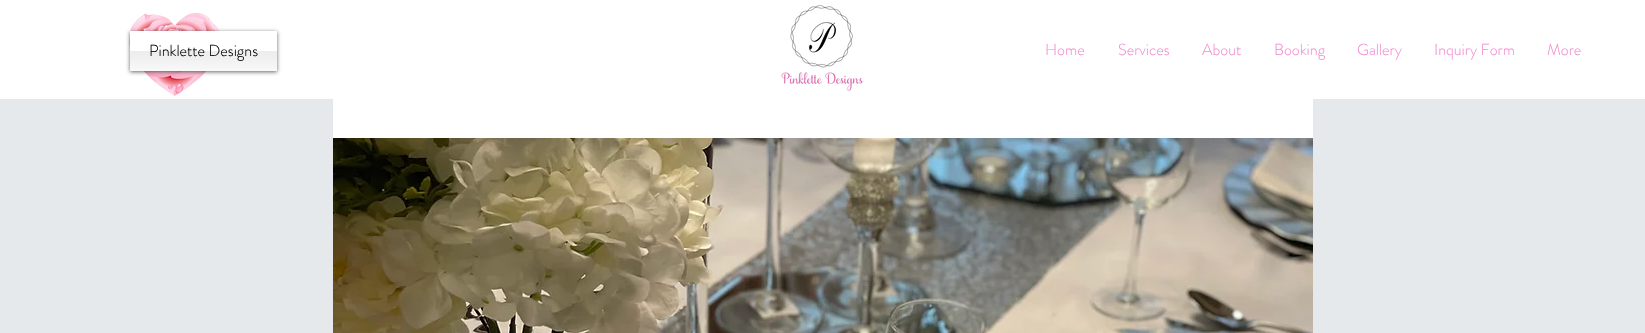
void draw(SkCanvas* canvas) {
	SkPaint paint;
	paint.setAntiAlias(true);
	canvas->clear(0xffe6e9eb);
	paint.setColor(0xffffffff);
	canvas->drawRect(SkRect::MakeXYWH(0, 0, 1645, 99), paint);
	canvas->drawImageRect(SkImages::DeferredFromEncodedData(SkData::MakeFromFileName("img1.png")), SkRect::MakeXYWH(129, 12, 91, 84), SkSamplingOptions());
	canvas->drawImageRect(SkImages::DeferredFromEncodedData(SkData::MakeFromFileName("img2.png")), SkRect::MakeXYWH(781, 5, 83, 86), SkSamplingOptions());
	paint.setColor(0x99000000);
	paint.setMaskFilter(SkMaskFilter::MakeBlur(kNormal_SkBlurStyle, 2));
	canvas->drawRect(SkRect::MakeXYWH(130, 32, 147, 40), paint);
	paint.setMaskFilter(nullptr);
	paint.setColor(0xffffffff);
	canvas->drawRect(SkRect::MakeXYWH(130, 31, 147, 40), paint);
	canvas->drawImageRect(SkImages::DeferredFromEncodedData(SkData::MakeFromFileName("img3.png")), SkRect::MakeXYWH(130, 51, 147, 20), SkSamplingOptions());
	SkFont f1(fontMgr->matchFamilyStyle("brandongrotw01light", SkFontStyle(300, SkFontStyle::kNormal_Width, SkFontStyle::kUpright_Slant)), 16);
	f1.setSubpixel(true);
	paint.setColor(0xff000000);
	canvas->drawString("Pinklette Designs", 149, 56, f1, paint);
	paint.setColor(0xfff28dd0);
	canvas->drawString("Home", 1045, 55, f1, paint);
	canvas->drawString("Services", 1118, 55, f1, paint);
	canvas->drawString("About", 1202, 55, f1, paint);
	canvas->drawString("Booking", 1274, 55, f1, paint);
	canvas->drawString("Gallery", 1357, 55, f1, paint);
	canvas->drawString("Inquiry Form", 1434, 55, f1, paint);
	canvas->drawString("More", 1547, 55, f1, paint);
	paint.setColor(0xffffffff);
	canvas->drawRect(SkRect::MakeXYWH(333, 99, 980, 39), paint);
	canvas->drawImageRect(SkImages::DeferredFromEncodedData(SkData::MakeFromFileName("img4.png")), SkRect::MakeXYWH(333, 138, 980, 195), SkSamplingOptions());
}
